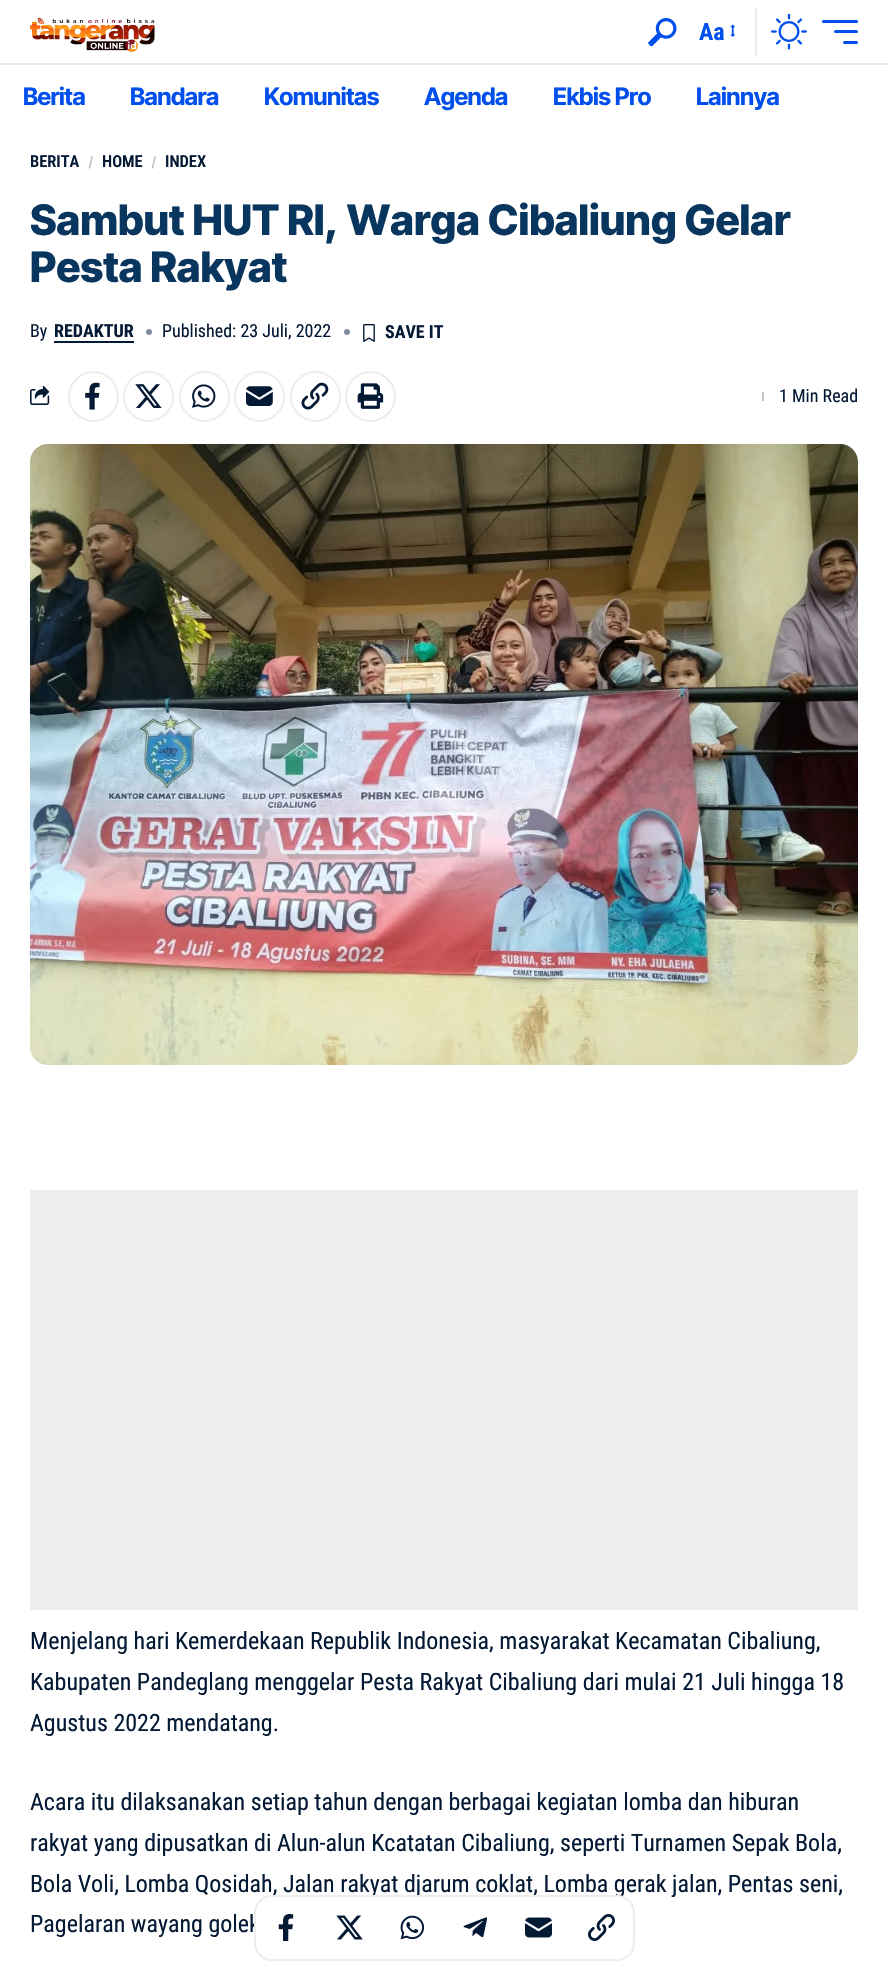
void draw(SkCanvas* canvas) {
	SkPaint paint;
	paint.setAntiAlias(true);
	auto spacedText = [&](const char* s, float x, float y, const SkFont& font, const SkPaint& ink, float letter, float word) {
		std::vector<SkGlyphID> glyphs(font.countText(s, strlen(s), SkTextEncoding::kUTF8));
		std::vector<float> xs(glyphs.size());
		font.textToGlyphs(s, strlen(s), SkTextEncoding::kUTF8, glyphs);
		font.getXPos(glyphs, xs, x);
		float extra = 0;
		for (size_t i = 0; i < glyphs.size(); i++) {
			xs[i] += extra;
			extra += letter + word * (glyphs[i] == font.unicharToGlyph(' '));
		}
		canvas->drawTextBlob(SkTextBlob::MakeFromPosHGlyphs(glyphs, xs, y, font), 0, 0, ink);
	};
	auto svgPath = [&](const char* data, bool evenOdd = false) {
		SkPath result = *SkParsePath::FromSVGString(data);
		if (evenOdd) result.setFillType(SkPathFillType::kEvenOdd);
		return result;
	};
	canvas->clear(0xffffffff);
	canvas->drawImageRect(SkImages::DeferredFromEncodedData(SkData::MakeFromFileName("img1.png")), SkRect::MakeXYWH(30, 17, 125, 35), SkSamplingOptions());
	canvas->drawImageRect(SkImages::DeferredFromEncodedData(SkData::MakeFromFileName("img2.png")), SkRect::MakeXYWH(648, 18, 29, 29), SkSamplingOptions());
	SkFont f1(fontMgr->matchFamilyStyle("Roboto Condensed", SkFontStyle::Bold()), 24);
	f1.setSubpixel(true);
	paint.setColor(0xff004fed);
	canvas->drawString("Aa", 699, 40, f1, paint);
	canvas->drawImageRect(SkImages::DeferredFromEncodedData(SkData::MakeFromFileName("img3.png")), SkRect::MakeXYWH(730, 24, 5, 13), SkSamplingOptions());
	paint.setColor(0xffeaeaea);
	canvas->drawRect(SkRect::MakeXYWH(755, 8, 2, 48), paint);
	canvas->drawImageRect(SkImages::DeferredFromEncodedData(SkData::MakeFromFileName("img4.png")), SkRect::MakeXYWH(771, 14, 36, 36), SkSamplingOptions());
	paint.setColor(0xff004fed);
	canvas->drawRoundRect(SkRect::MakeXYWH(822, 20, 36, 3), 1.5, 1.5, paint);
	canvas->drawRoundRect(SkRect::MakeXYWH(834, 30, 24, 3), 1.5, 1.5, paint);
	canvas->drawRoundRect(SkRect::MakeXYWH(843, 41, 15, 3), 1.5, 1.5, paint);
	paint.setColor(0xffeaeaea);
	canvas->drawRect(SkRect::MakeXYWH(0, 63, 888, 2), paint);
	SkFont f2(fontMgr->matchFamilyStyle("Inter Tight", SkFontStyle::Bold()), 24);
	f2.setSubpixel(true);
	paint.setColor(0xff004fed);
	spacedText("Berita", 23, 105, f2, paint, -0.5, 0);
	spacedText("Bandara", 130, 105, f2, paint, -0.5, 0);
	spacedText("Komunitas", 264, 105, f2, paint, -0.5, 0);
	spacedText("Agenda", 424, 105, f2, paint, -0.5, 0);
	spacedText("Ekbis Pro", 553, 105, f2, paint, -0.5, 0);
	spacedText("Lainnya", 696, 105, f2, paint, -0.5, 0);
	SkFont f3(fontMgr->matchFamilyStyle("Roboto Condensed", SkFontStyle(600, SkFontStyle::kNormal_Width, SkFontStyle::kUpright_Slant)), 16.5);
	f3.setSubpixel(true);
	paint.setColor(0xff031934);
	canvas->drawString("BERITA", 30, 167, f3, paint);
	paint.setColor(0xffb3bac2);
	canvas->drawPath(svgPath("M91.5 156.5H93L90 168.5H88.5Z"), paint);
	paint.setColor(0xff031934);
	canvas->drawString("HOME", 102, 167, f3, paint);
	paint.setColor(0xffb3bac2);
	canvas->drawPath(svgPath("M154.5 156.5H156L153 168.5H151.5Z"), paint);
	paint.setColor(0xff031934);
	canvas->drawString("INDEX", 165, 167, f3, paint);
	SkFont f4(fontMgr->matchFamilyStyle("Inter Tight", SkFontStyle(800, SkFontStyle::kNormal_Width, SkFontStyle::kUpright_Slant)), 42);
	f4.setSubpixel(true);
	paint.setColor(0xff09365e);
	canvas->drawString("Sambut HUT RI, Warga Cibaliung Gelar", 30, 235, f4, paint);
	canvas->drawString("Pesta Rakyat", 30, 282, f4, paint);
	SkFont f5(fontMgr->matchFamilyStyle("Roboto Condensed", SkFontStyle::Normal()), 18);
	f5.setSubpixel(true);
	paint.setColor(0xff031934);
	canvas->drawString("By", 30, 337, f5, paint);
	SkFont f6(fontMgr->matchFamilyStyle("Roboto Condensed", SkFontStyle::Bold()), 18);
	f6.setSubpixel(true);
	canvas->drawString("REDAKTUR", 54, 337, f6, paint);
	canvas->drawRect(SkRect::MakeXYWH(54, 341, 80, 2), paint);
	paint.setColor(0xff818c9a);
	canvas->drawCircle(149, 332, 3, paint);
	paint.setColor(0xff031934);
	canvas->drawString("Published: 23 Juli, 2022", 162, 337, f5, paint);
	paint.setColor(0xff818c9a);
	canvas->drawCircle(347, 332, 3, paint);
	canvas->drawImageRect(SkImages::DeferredFromEncodedData(SkData::MakeFromFileName("img5.png")), SkRect::MakeXYWH(363, 324, 12, 18), SkSamplingOptions());
	paint.setColor(0xff031934);
	canvas->drawString("SAVE IT", 385, 338, f6, paint);
	canvas->drawImageRect(SkImages::DeferredFromEncodedData(SkData::MakeFromFileName("img6.png")), SkRect::MakeXYWH(30, 385, 20, 20), SkSamplingOptions());
	paint.setStroke(true);
	paint.setStrokeWidth(2);
	paint.setColor(0xffededed);
	canvas->drawCircle(93.5, 396.5, 24.5, paint);
	canvas->drawImageRect(SkImages::DeferredFromEncodedData(SkData::MakeFromFileName("img7.png")), SkRect::MakeXYWH(85, 382, 15, 28), SkSamplingOptions());
	canvas->drawCircle(148.5, 396.5, 24.5, paint);
	canvas->drawImageRect(SkImages::DeferredFromEncodedData(SkData::MakeFromFileName("img8.png")), SkRect::MakeXYWH(135, 384, 27, 24), SkSamplingOptions());
	canvas->drawCircle(204.5, 396.5, 24.5, paint);
	canvas->drawImageRect(SkImages::DeferredFromEncodedData(SkData::MakeFromFileName("img9.png")), SkRect::MakeXYWH(192, 384, 24, 24), SkSamplingOptions());
	canvas->drawCircle(259.5, 396.5, 24.5, paint);
	canvas->drawImageRect(SkImages::DeferredFromEncodedData(SkData::MakeFromFileName("img10.png")), SkRect::MakeXYWH(246, 386, 27, 20), SkSamplingOptions());
	canvas->drawCircle(315.5, 396.5, 24.5, paint);
	canvas->drawImageRect(SkImages::DeferredFromEncodedData(SkData::MakeFromFileName("img11.png")), SkRect::MakeXYWH(301, 382, 28, 28), SkSamplingOptions());
	canvas->drawCircle(370.5, 396.5, 24.5, paint);
	canvas->drawImageRect(SkImages::DeferredFromEncodedData(SkData::MakeFromFileName("img12.png")), SkRect::MakeXYWH(357, 383, 27, 26), SkSamplingOptions());
	paint.setStroke(false);
	paint.setColor(0xffc0c6cc);
	canvas->drawRect(SkRect::MakeXYWH(762, 392, 2, 9), paint);
	paint.setColor(0xff031934);
	canvas->drawString("1 Min Read", 779, 402, f5, paint);
	canvas->drawImageRect(SkImages::DeferredFromEncodedData(SkData::MakeFromFileName("img13.png")), SkRect::MakeXYWH(30, 444, 828, 621), SkSamplingOptions());
	paint.setColor(0xffeeeeee);
	canvas->drawRect(SkRect::MakeXYWH(30, 1190, 828, 420), paint);
	SkFont f7(fontMgr->matchFamilyStyle("Roboto Condensed", SkFontStyle::Normal()), 24);
	f7.setSubpixel(true);
	paint.setColor(0xff031934);
	canvas->drawString("Menjelang hari Kemerdekaan Republik Indonesia, masyarakat Kecamatan Cibaliung,", 30, 1649, f7, paint);
	canvas->drawString("Kabupaten Pandeglang menggelar Pesta Rakyat Cibaliung dari mulai 21 Juli hingga 18", 30, 1690, f7, paint);
	canvas->drawString("Agustus 2022 mendatang.", 30, 1731, f7, paint);
	canvas->drawString("Acara itu dilaksanakan setiap tahun dengan berbagai kegiatan lomba dan hiburan", 30, 1810, f7, paint);
	canvas->drawString("rakyat yang dipusatkan di Alun-alun Kcatatan Cibaliung, seperti Turnamen Sepak Bola,", 30, 1851, f7, paint);
	canvas->drawString("Bola Voli, Lomba Qosidah, Jalan rakyat djarum coklat, Lomba gerak jalan, Pentas seni,", 30, 1892, f7, paint);
	canvas->drawString("Pagelaran wayang golek", 30, 1932, f7, paint);
	paint.setColor(0xffffffff);
	canvas->drawRoundRect(SkRect::MakeXYWH(254, 1895, 381, 66), 18, 18, paint);
	paint.setStroke(true);
	paint.setColor(0x26888888);
	canvas->drawRoundRect(SkRect::MakeXYWH(255, 1896, 379, 64), 17, 17, paint);
	canvas->drawImageRect(SkImages::DeferredFromEncodedData(SkData::MakeFromFileName("img14.png")), SkRect::MakeXYWH(278, 1914, 16, 27), SkSamplingOptions());
	canvas->drawImageRect(SkImages::DeferredFromEncodedData(SkData::MakeFromFileName("img15.png")), SkRect::MakeXYWH(336, 1915, 27, 25), SkSamplingOptions());
	canvas->drawImageRect(SkImages::DeferredFromEncodedData(SkData::MakeFromFileName("img16.png")), SkRect::MakeXYWH(400, 1915, 25, 25), SkSamplingOptions());
	canvas->drawImageRect(SkImages::DeferredFromEncodedData(SkData::MakeFromFileName("img17.png")), SkRect::MakeXYWH(463, 1917, 25, 21), SkSamplingOptions());
	canvas->drawImageRect(SkImages::DeferredFromEncodedData(SkData::MakeFromFileName("img18.png")), SkRect::MakeXYWH(525, 1917, 27, 21), SkSamplingOptions());
	canvas->drawImageRect(SkImages::DeferredFromEncodedData(SkData::MakeFromFileName("img19.png")), SkRect::MakeXYWH(588, 1914, 27, 27), SkSamplingOptions());
}
